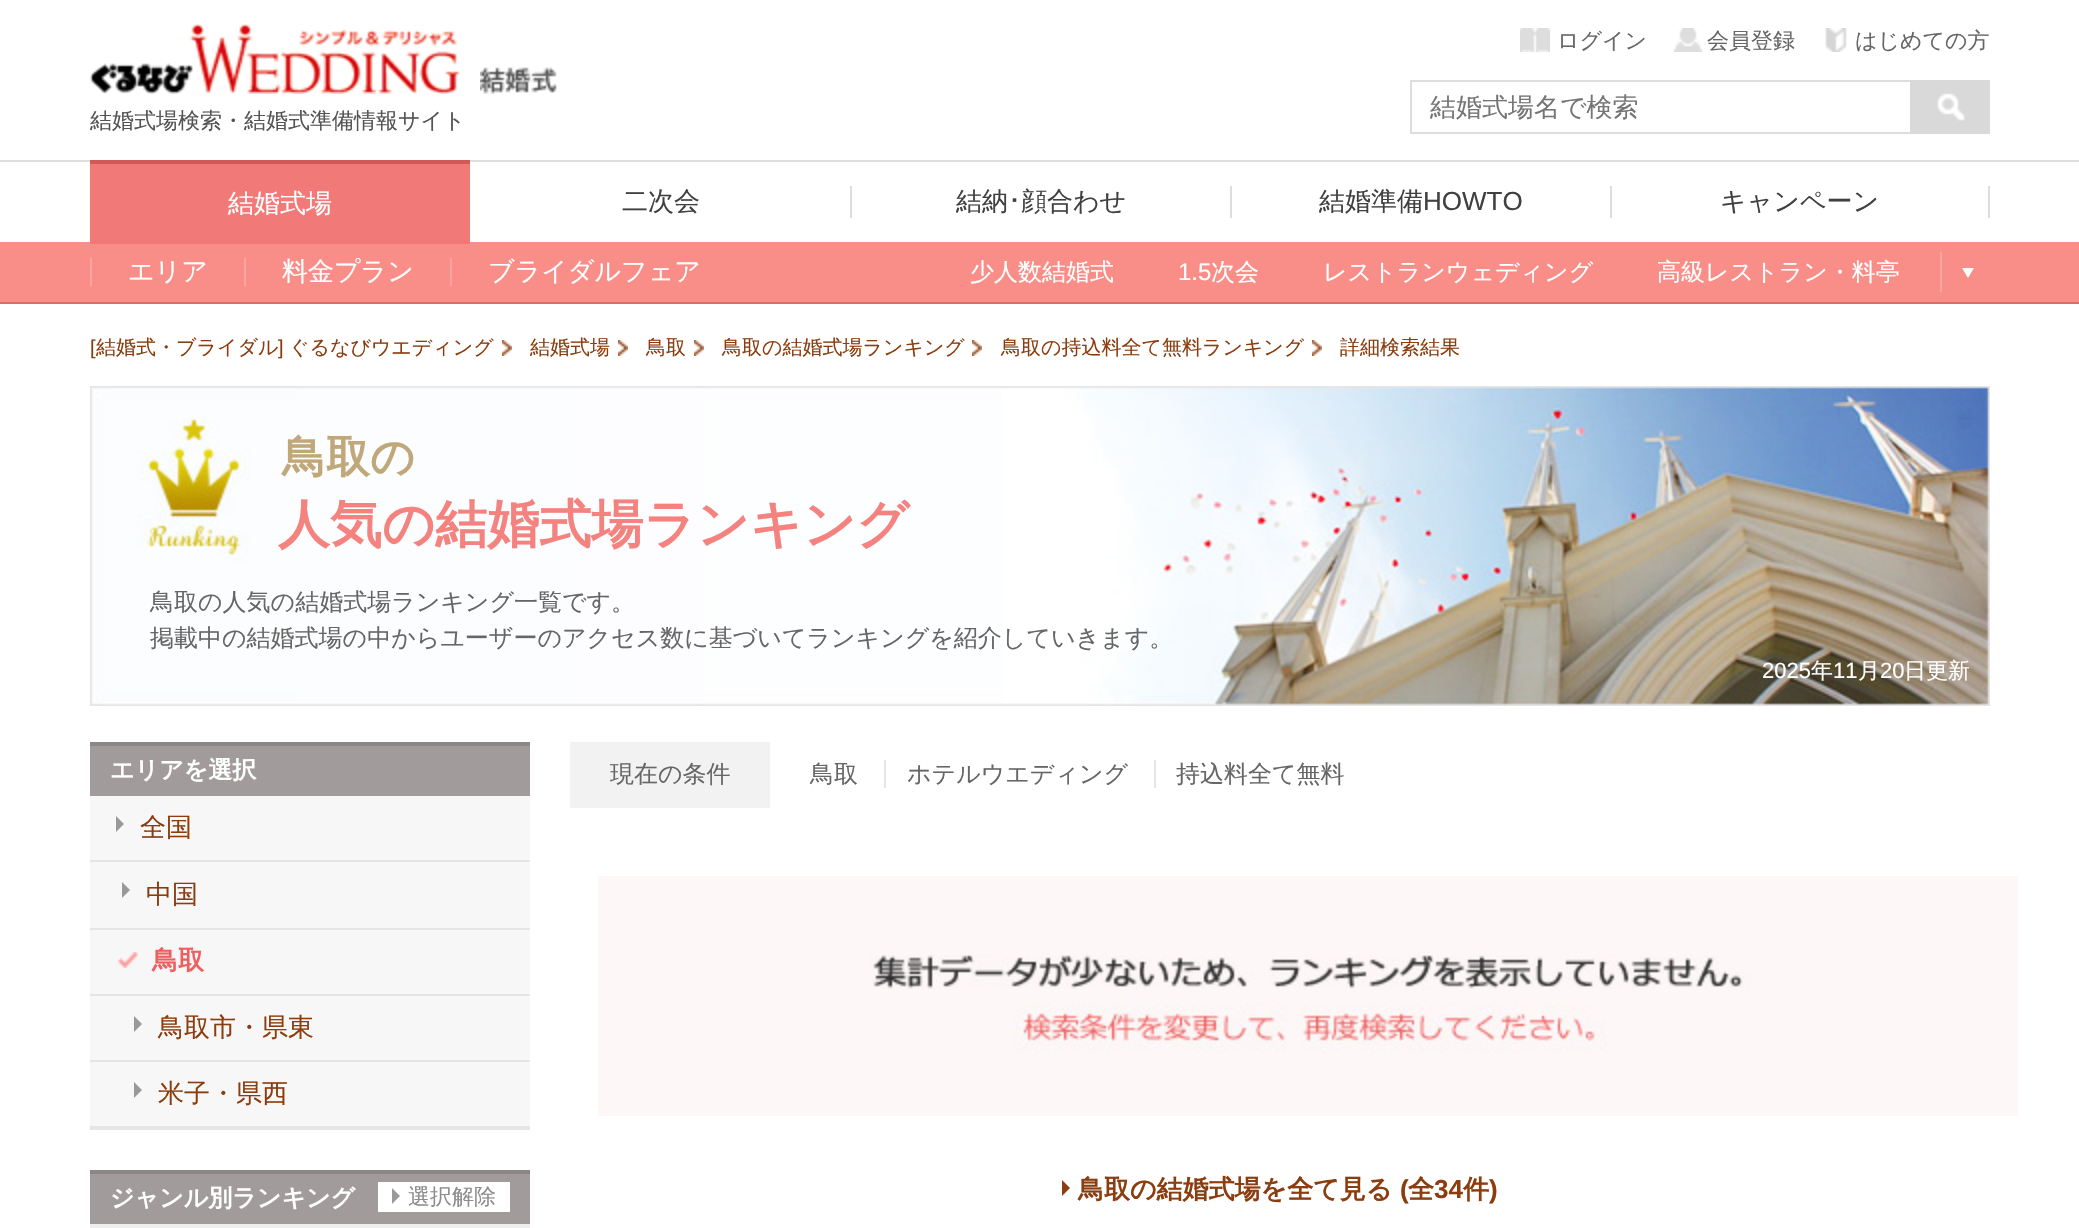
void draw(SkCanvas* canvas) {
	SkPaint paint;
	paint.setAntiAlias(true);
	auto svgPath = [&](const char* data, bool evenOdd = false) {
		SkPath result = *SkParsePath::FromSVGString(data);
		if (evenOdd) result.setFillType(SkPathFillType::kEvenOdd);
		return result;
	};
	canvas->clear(0xffffffff);
	canvas->drawImageRect(SkImages::DeferredFromEncodedData(SkData::MakeFromFileName("img1.png")), SkRect::MakeXYWH(90, 24, 370, 70), SkSamplingOptions());
	canvas->drawImageRect(SkImages::DeferredFromEncodedData(SkData::MakeFromFileName("img2.png")), SkRect::MakeXYWH(1520, 28, 30, 24), SkSamplingOptions());
	SkFont f1(fontMgr->matchFamilyStyle("WenQuanYi Zen Hei", SkFontStyle(500, SkFontStyle::kNormal_Width, SkFontStyle::kUpright_Slant)), 22);
	f1.setSubpixel(true);
	paint.setColor(0xff666666);
	canvas->drawString("ログイン", 1557, 48, f1, paint);
	canvas->drawImageRect(SkImages::DeferredFromEncodedData(SkData::MakeFromFileName("img3.png")), SkRect::MakeXYWH(1674, 28, 29, 24), SkSamplingOptions());
	canvas->drawString("会員登録", 1707, 48, f1, paint);
	canvas->drawImageRect(SkImages::DeferredFromEncodedData(SkData::MakeFromFileName("img4.png")), SkRect::MakeXYWH(1825, 28, 22, 24), SkSamplingOptions());
	canvas->drawString("はじめての方", 1855, 48, f1, paint);
	canvas->drawImageRect(SkImages::DeferredFromEncodedData(SkData::MakeFromFileName("img5.png")), SkRect::MakeXYWH(480, 67, 77, 27), SkSamplingOptions());
	paint.setColor(0xff545454);
	canvas->drawString("結婚式場検索・結婚式準備情報サイト", 90, 128, f1, paint);
	paint.setColor(0xffdddddd);
	canvas->drawRect(SkRect::MakeXYWH(1410, 80, 500, 2), paint);
	canvas->drawRect(SkRect::MakeXYWH(1410, 132, 500, 2), paint);
	canvas->drawRect(SkRect::MakeXYWH(1410, 80, 2, 54), paint);
	SkFont f2(fontMgr->matchFamilyStyle("WenQuanYi Zen Hei", SkFontStyle(500, SkFontStyle::kNormal_Width, SkFontStyle::kUpright_Slant)), 26);
	f2.setSubpixel(true);
	paint.setColor(0xff757575);
	canvas->drawString("結婚式場名で検索", 1430, 116, f2, paint);
	canvas->drawImageRect(SkImages::DeferredFromEncodedData(SkData::MakeFromFileName("img6.png")), SkRect::MakeXYWH(1910, 80, 80, 54), SkSamplingOptions());
	paint.setColor(0xffdddddd);
	canvas->drawRect(SkRect::MakeXYWH(0, 160, 2079, 2), paint);
	paint.setColor(0xfff98e88);
	canvas->drawRect(SkRect::MakeXYWH(0, 242, 2079, 60), paint);
	paint.setColor(0xfff17978);
	canvas->drawRect(SkRect::MakeXYWH(90, 164, 380, 80), paint);
	paint.setColor(0xffd15958);
	canvas->drawRect(SkRect::MakeXYWH(90, 160, 380, 4), paint);
	paint.setColor(0xffffffff);
	canvas->drawString("結婚式場", 228, 212, f2, paint);
	paint.setColor(0xff404040);
	canvas->drawString("二次会", 622, 210, f2, paint);
	paint.setColor(0xffdddddd);
	canvas->drawRect(SkRect::MakeXYWH(850, 186, 2, 32), paint);
	paint.setColor(0xff404040);
	canvas->drawString("結納", 956, 210, f2, paint);
	SkFont f3(fontMgr->matchFamilyStyle("IPAGothic", SkFontStyle::Normal()), 26);
	f3.setSubpixel(true);
	canvas->drawString("･", 1008, 210, f3, paint);
	canvas->drawString("顔合わせ", 1021, 210, f2, paint);
	paint.setColor(0xffdddddd);
	canvas->drawRect(SkRect::MakeXYWH(1230, 186, 2, 32), paint);
	paint.setColor(0xff404040);
	canvas->drawString("結婚準備", 1319, 210, f2, paint);
	SkFont f4(fontMgr->matchFamilyStyle("Liberation Sans", SkFontStyle::Normal()), 26);
	f4.setSubpixel(true);
	canvas->drawString("HOWTO", 1423, 210, f4, paint);
	paint.setColor(0xffdddddd);
	canvas->drawRect(SkRect::MakeXYWH(1988, 186, 2, 32), paint);
	canvas->drawRect(SkRect::MakeXYWH(1610, 186, 2, 32), paint);
	paint.setColor(0xff404040);
	canvas->drawString("キャンペーン", 1720, 210, f2, paint);
	paint.setColor(0xffd96e68);
	canvas->drawRect(SkRect::MakeXYWH(0, 302, 2079, 2), paint);
	paint.setColor(0xfffaa5a0);
	canvas->drawRect(SkRect::MakeXYWH(90, 258, 2, 28), paint);
	paint.setColor(0xffffffff);
	canvas->drawString("エリア", 128, 280, f2, paint);
	paint.setColor(0xfffaa5a0);
	canvas->drawRect(SkRect::MakeXYWH(244, 258, 2, 28), paint);
	paint.setColor(0xffffffff);
	canvas->drawString("料金プラン", 282, 280, f2, paint);
	paint.setColor(0xfffaa5a0);
	canvas->drawRect(SkRect::MakeXYWH(450, 258, 2, 28), paint);
	paint.setColor(0xffffffff);
	canvas->drawString("ブライダルフェア", 488, 280, f2, paint);
	SkFont f5(fontMgr->matchFamilyStyle("WenQuanYi Zen Hei", SkFontStyle(500, SkFontStyle::kNormal_Width, SkFontStyle::kUpright_Slant)), 24);
	f5.setSubpixel(true);
	canvas->drawString("少人数結婚式", 970, 280, f5, paint);
	SkFont f6(fontMgr->matchFamilyStyle("Liberation Sans", SkFontStyle::Normal()), 24);
	f6.setSubpixel(true);
	canvas->drawString("1.5", 1178, 280, f6, paint);
	canvas->drawString("次会", 1211, 280, f5, paint);
	canvas->drawString("レストランウェディング", 1323, 280, f5, paint);
	canvas->drawString("高級レストラン・料亭", 1657, 280, f5, paint);
	paint.setColor(0xfffaa5a0);
	canvas->drawRect(SkRect::MakeXYWH(1940, 252, 2, 40), paint);
	paint.setColor(0xffffffff);
	canvas->drawPath(svgPath("M1962 268H1974L1968 278Z"), paint);
	SkFont f7(fontMgr->matchFamilyStyle("Liberation Sans", SkFontStyle::Normal()), 20);
	f7.setSubpixel(true);
	paint.setColor(0xff8b3d0f);
	canvas->drawString("[", 90, 354, f7, paint);
	SkFont f8(fontMgr->matchFamilyStyle("WenQuanYi Zen Hei", SkFontStyle(500, SkFontStyle::kNormal_Width, SkFontStyle::kUpright_Slant)), 20);
	f8.setSubpixel(true);
	canvas->drawString("結婚式・ブライダル", 96, 354, f8, paint);
	canvas->drawString("]", 278, 354, f7, paint);
	canvas->drawString("ぐるなびウエディング", 289, 354, f8, paint);
	canvas->drawImageRect(SkImages::DeferredFromEncodedData(SkData::MakeFromFileName("img7.png")), SkRect::MakeXYWH(502, 340, 10, 16), SkSamplingOptions());
	canvas->drawString("結婚式場", 530, 354, f8, paint);
	canvas->drawImageRect(SkImages::DeferredFromEncodedData(SkData::MakeFromFileName("img7.png")), SkRect::MakeXYWH(618, 340, 10, 16), SkSamplingOptions());
	canvas->drawString("鳥取", 646, 354, f8, paint);
	canvas->drawImageRect(SkImages::DeferredFromEncodedData(SkData::MakeFromFileName("img7.png")), SkRect::MakeXYWH(694, 340, 10, 16), SkSamplingOptions());
	canvas->drawString("鳥取の結婚式場ランキング", 722, 354, f8, paint);
	canvas->drawImageRect(SkImages::DeferredFromEncodedData(SkData::MakeFromFileName("img7.png")), SkRect::MakeXYWH(972, 340, 10, 16), SkSamplingOptions());
	canvas->drawString("鳥取の持込料全て無料ランキング", 1001, 354, f8, paint);
	canvas->drawImageRect(SkImages::DeferredFromEncodedData(SkData::MakeFromFileName("img7.png")), SkRect::MakeXYWH(1312, 340, 10, 16), SkSamplingOptions());
	canvas->drawString("詳細検索結果", 1340, 354, f8, paint);
	canvas->drawImageRect(SkImages::DeferredFromEncodedData(SkData::MakeFromFileName("img8.png")), SkRect::MakeXYWH(90, 386, 1900, 320), SkSamplingOptions());
	SkFont f9(fontMgr->matchFamilyStyle("WenQuanYi Zen Hei", SkFontStyle::Bold()), 44);
	f9.setSubpixel(true);
	paint.setColor(0xffc0a87a);
	canvas->drawString("鳥取の", 282, 472, f9, paint);
	SkFont f10(fontMgr->matchFamilyStyle("WenQuanYi Zen Hei", SkFontStyle::Bold()), 52);
	f10.setSubpixel(true);
	paint.setColor(0xfff4837f);
	canvas->drawString("人気の結婚式場ランキング", 278, 542, f10, paint);
	paint.setColor(0xff666666);
	canvas->drawString("鳥取の人気の結婚式場ランキング一覧です。", 150, 610, f5, paint);
	canvas->drawString("掲載中の結婚式場の中からユーザーのアクセス数に基づいてランキングを紹介していきます。", 150, 646, f5, paint);
	SkFont f11(fontMgr->matchFamilyStyle("Liberation Sans", SkFontStyle::Normal()), 22);
	f11.setSubpixel(true);
	paint.setColor(0xffffffff);
	canvas->drawString("2025", 1762, 678, f11, paint);
	canvas->drawString("年", 1811, 678, f1, paint);
	canvas->drawString("11", 1833, 678, f11, paint);
	canvas->drawString("月", 1858, 678, f1, paint);
	canvas->drawString("20", 1880, 678, f11, paint);
	canvas->drawString("日更新", 1904, 678, f1, paint);
	paint.setColor(0xffa19b9b);
	canvas->drawRect(SkRect::MakeXYWH(90, 746, 440, 50), paint);
	paint.setColor(0xff8c8787);
	canvas->drawRect(SkRect::MakeXYWH(90, 742, 440, 4), paint);
	SkFont f12(fontMgr->matchFamilyStyle("WenQuanYi Zen Hei", SkFontStyle::Bold()), 24);
	f12.setSubpixel(true);
	paint.setColor(0xffffffff);
	canvas->drawString("エリアを選択", 110, 778, f12, paint);
	paint.setColor(0xfff7f7f7);
	canvas->drawRect(SkRect::MakeXYWH(90, 796, 440, 330), paint);
	paint.setColor(0xffe5e5e5);
	canvas->drawRect(SkRect::MakeXYWH(90, 1126, 440, 4), paint);
	canvas->drawRect(SkRect::MakeXYWH(90, 860, 440, 2), paint);
	paint.setColor(0xff999999);
	canvas->drawPath(svgPath("M116 832V816L124 824Z"), paint);
	paint.setColor(0xff8b3d0f);
	canvas->drawString("全国", 140, 836, f2, paint);
	paint.setColor(0xffe5e5e5);
	canvas->drawRect(SkRect::MakeXYWH(90, 928, 440, 2), paint);
	paint.setColor(0xff999999);
	canvas->drawPath(svgPath("M122 898V882L130 890Z"), paint);
	paint.setColor(0xff8b3d0f);
	canvas->drawString("中国", 146, 903, f2, paint);
	canvas->drawImageRect(SkImages::DeferredFromEncodedData(SkData::MakeFromFileName("img9.png")), SkRect::MakeXYWH(118, 952, 20, 16), SkSamplingOptions());
	paint.setColor(0xffe5e5e5);
	canvas->drawRect(SkRect::MakeXYWH(90, 994, 440, 2), paint);
	SkFont f13(fontMgr->matchFamilyStyle("WenQuanYi Zen Hei", SkFontStyle::Bold()), 26);
	f13.setSubpixel(true);
	paint.setColor(0xffef5f5f);
	canvas->drawString("鳥取", 152, 969, f13, paint);
	paint.setColor(0xffe5e5e5);
	canvas->drawRect(SkRect::MakeXYWH(90, 1060, 440, 2), paint);
	paint.setColor(0xff999999);
	canvas->drawPath(svgPath("M134 1032V1016L142 1024Z"), paint);
	paint.setColor(0xff8b3d0f);
	canvas->drawString("鳥取市・県東", 158, 1036, f2, paint);
	paint.setColor(0xff999999);
	canvas->drawPath(svgPath("M134 1098V1082L142 1090Z"), paint);
	paint.setColor(0xff8b3d0f);
	canvas->drawString("米子・県西", 158, 1102, f2, paint);
	paint.setColor(0xffa19b9b);
	canvas->drawRect(SkRect::MakeXYWH(90, 1174, 440, 50), paint);
	paint.setColor(0xff8c8787);
	canvas->drawRect(SkRect::MakeXYWH(90, 1170, 440, 4), paint);
	paint.setColor(0xffffffff);
	canvas->drawString("ジャンル別ランキング", 110, 1206, f12, paint);
	canvas->drawRect(SkRect::MakeXYWH(378, 1182, 132, 30), paint);
	paint.setColor(0xff999999);
	canvas->drawPath(svgPath("M392 1204V1188L400 1196Z"), paint);
	paint.setColor(0xff8c8c8c);
	canvas->drawString("選択解除", 408, 1204, f1, paint);
	paint.setColor(0xffeeeeee);
	canvas->drawRect(SkRect::MakeXYWH(90, 1224, 440, 4), paint);
	paint.setColor(0xfff2f2f2);
	canvas->drawRect(SkRect::MakeXYWH(570, 742, 200, 66), paint);
	paint.setColor(0xff666666);
	canvas->drawString("現在の条件", 610, 782, f5, paint);
	canvas->drawString("鳥取", 810, 782, f5, paint);
	canvas->drawString("ホテルウエディング", 907, 782, f5, paint);
	paint.setColor(0xffe5e5e5);
	canvas->drawRect(SkRect::MakeXYWH(884, 760, 2, 28), paint);
	paint.setColor(0xff666666);
	canvas->drawString("持込料全て無料", 1176, 782, f5, paint);
	paint.setColor(0xffe5e5e5);
	canvas->drawRect(SkRect::MakeXYWH(1154, 760, 2, 28), paint);
	canvas->drawImageRect(SkImages::DeferredFromEncodedData(SkData::MakeFromFileName("img10.png")), SkRect::MakeXYWH(598, 876, 1420, 240), SkSamplingOptions());
	paint.setColor(0xff8b3d0f);
	canvas->drawPath(svgPath("M1062 1196V1180L1070 1188Z"), paint);
	canvas->drawString("鳥取の結婚式場を全て見る", 1078, 1198, f13, paint);
	SkFont f14(fontMgr->matchFamilyStyle("Liberation Sans", SkFontStyle::Bold()), 26);
	f14.setSubpixel(true);
	canvas->drawString("(", 1400, 1198, f14, paint);
	canvas->drawString("全", 1408, 1198, f13, paint);
	canvas->drawString("34", 1434, 1198, f14, paint);
	canvas->drawString("件", 1463, 1198, f13, paint);
	canvas->drawString(")", 1489, 1198, f14, paint);
}
